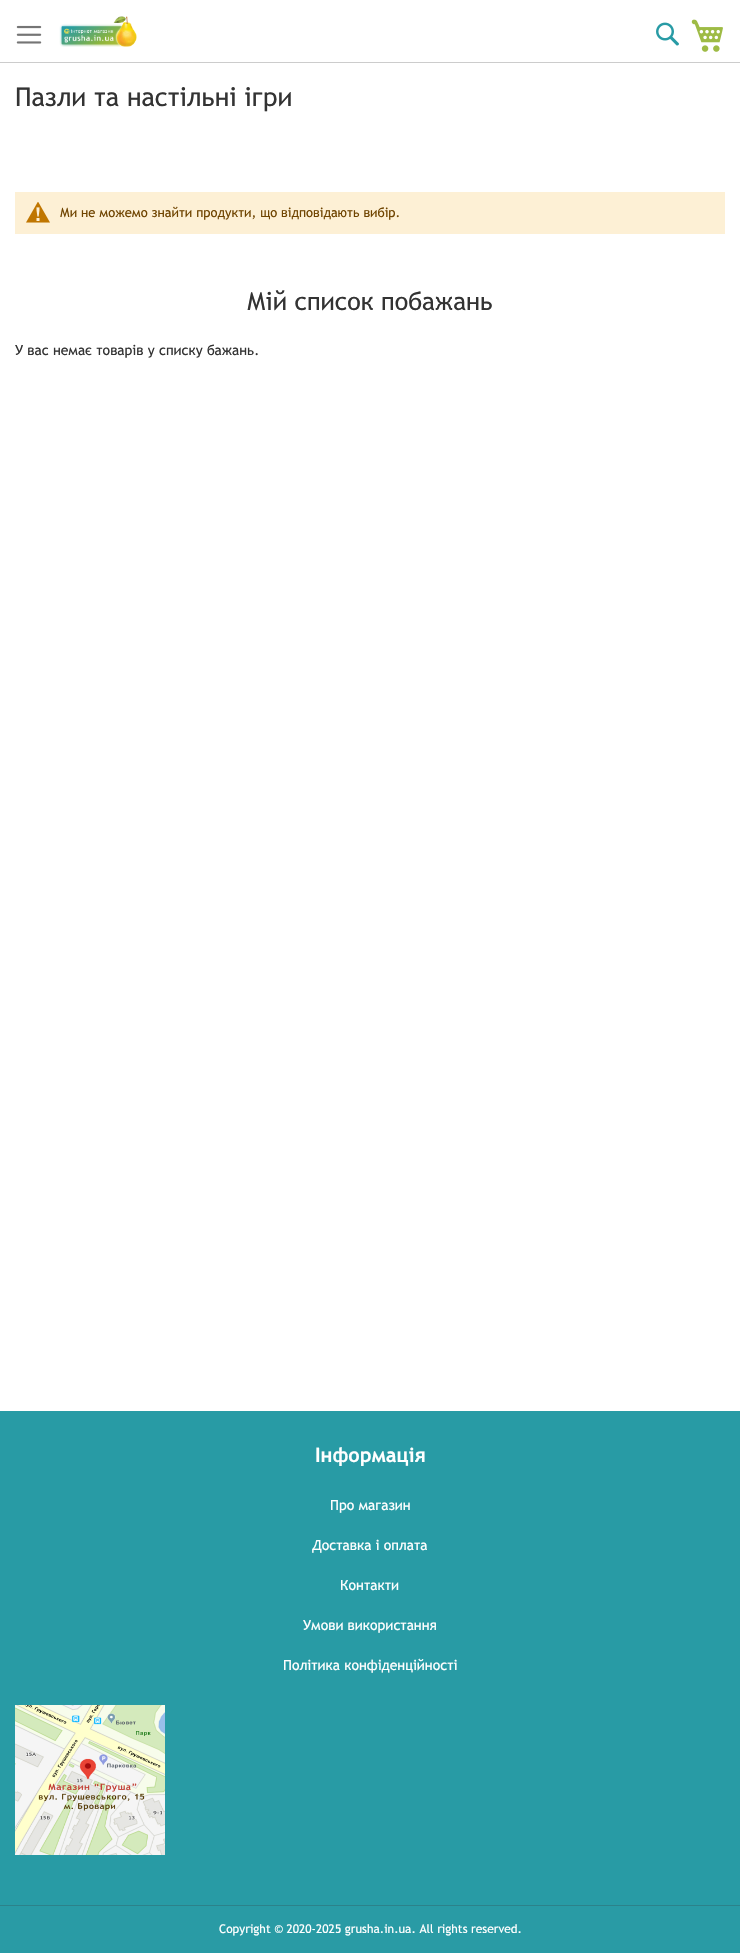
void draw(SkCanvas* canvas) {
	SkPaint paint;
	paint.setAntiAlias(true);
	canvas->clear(0xffffffff);
	paint.setColor(0xffcccccc);
	canvas->drawRect(SkRect::MakeXYWH(0, 62, 740, 1), paint);
	canvas->drawImageRect(SkImages::DeferredFromEncodedData(SkData::MakeFromFileName("img1.png")), SkRect::MakeXYWH(16, 25, 26, 19), SkSamplingOptions());
	canvas->drawImageRect(SkImages::DeferredFromEncodedData(SkData::MakeFromFileName("img2.png")), SkRect::MakeXYWH(59, 16, 78, 31), SkSamplingOptions());
	canvas->drawImageRect(SkImages::DeferredFromEncodedData(SkData::MakeFromFileName("img3.png")), SkRect::MakeXYWH(656, 22, 23, 24), SkSamplingOptions());
	canvas->drawImageRect(SkImages::DeferredFromEncodedData(SkData::MakeFromFileName("img4.png")), SkRect::MakeXYWH(691, 19, 32, 33), SkSamplingOptions());
	SkFont f1(fontMgr->matchFamilyStyle("Trebuchet MS", SkFontStyle::Normal()), 26);
	f1.setSubpixel(true);
	paint.setColor(0xff333333);
	canvas->drawString("Пазли та настільні ігри", 15, 106, f1, paint);
	paint.setColor(0xfffdf0d5);
	canvas->drawRect(SkRect::MakeXYWH(15, 192, 710, 42), paint);
	canvas->drawImageRect(SkImages::DeferredFromEncodedData(SkData::MakeFromFileName("img5.png")), SkRect::MakeXYWH(26, 202, 24, 21), SkSamplingOptions());
	SkFont f2(fontMgr->matchFamilyStyle("Trebuchet MS", SkFontStyle::Normal()), 13);
	f2.setSubpixel(true);
	paint.setColor(0xff6f4400);
	canvas->drawString("Ми не можемо знайти продукти, що відповідають вибір.", 60, 217, f2, paint);
	SkFont f3(fontMgr->matchFamilyStyle("Trebuchet MS", SkFontStyle::Normal()), 25);
	f3.setSubpixel(true);
	paint.setColor(0xff333333);
	canvas->drawString("Мій список побажань", 247, 310, f3, paint);
	SkFont f4(fontMgr->matchFamilyStyle("Trebuchet MS", SkFontStyle::Normal()), 14);
	f4.setSubpixel(true);
	canvas->drawString("У вас немає товарів у списку бажань.", 15, 355, f4, paint);
	paint.setColor(0xff289ba5);
	canvas->drawRect(SkRect::MakeXYWH(0, 1411, 740, 494), paint);
	paint.setColor(0xff2c828a);
	canvas->drawRect(SkRect::MakeXYWH(0, 1905, 740, 1), paint);
	SkFont f5(fontMgr->matchFamilyStyle("Trebuchet MS", SkFontStyle::Bold()), 20);
	f5.setSubpixel(true);
	paint.setColor(0xffffffff);
	canvas->drawString("Інформація", 315, 1462, f5, paint);
	canvas->drawString("Про магазин", 330, 1510, f4, paint);
	canvas->drawString("Доставка і оплата", 312, 1550, f4, paint);
	canvas->drawString("Контакти", 340, 1590, f4, paint);
	canvas->drawString("Умови використання", 303, 1630, f4, paint);
	canvas->drawString("Політика конфіденційності", 283, 1670, f4, paint);
	canvas->drawImageRect(SkImages::DeferredFromEncodedData(SkData::MakeFromFileName("img6.png")), SkRect::MakeXYWH(15, 1705, 150, 150), SkSamplingOptions());
	paint.setColor(0xff299ba5);
	canvas->drawRect(SkRect::MakeXYWH(0, 1906, 740, 47), paint);
	SkFont f6(fontMgr->matchFamilyStyle("Trebuchet MS", SkFontStyle::Normal()), 12);
	f6.setSubpixel(true);
	paint.setColor(0xffffffff);
	canvas->drawString("Copyright © 2020-2025 grusha.in.ua. All rights reserved.", 219, 1933, f6, paint);
}
